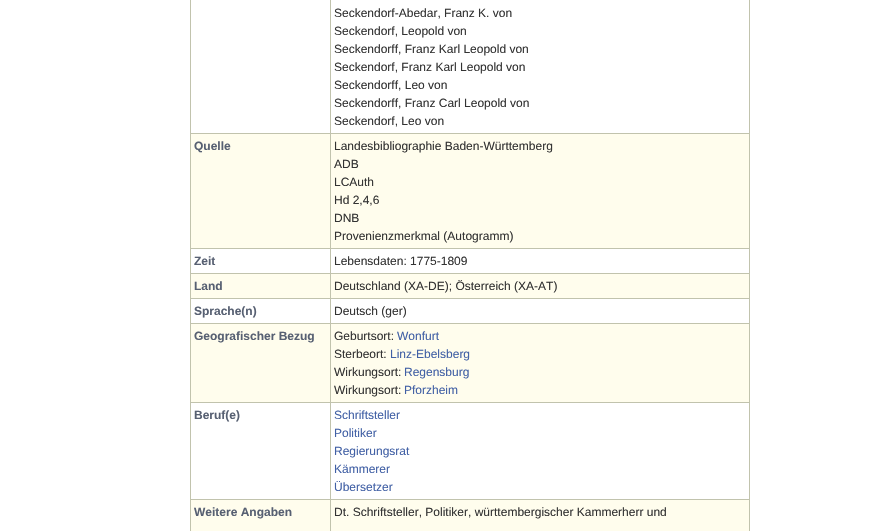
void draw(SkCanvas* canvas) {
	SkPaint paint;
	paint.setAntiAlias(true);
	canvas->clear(0xffffffff);
	paint.setColor(0xffc1c3ad);
	canvas->drawRect(SkRect::MakeXYWH(749, 0, 1, 531), paint);
	canvas->drawRect(SkRect::MakeXYWH(190, 0, 1, 531), paint);
	SkFont f1(fontMgr->matchFamilyStyle("Liberation Sans", SkFontStyle::Normal()), 12);
	f1.setSubpixel(true);
	paint.setColor(0xff333333);
	canvas->drawString("Seckendorf-Abedar, Franz K. von", 334, 17, f1, paint);
	canvas->drawString("Seckendorf, Leopold von", 334, 35, f1, paint);
	canvas->drawString("Seckendorff, Franz Karl Leopold von", 334, 53, f1, paint);
	canvas->drawString("Seckendorf, Franz Karl Leopold von", 334, 71, f1, paint);
	canvas->drawString("Seckendorff, Leo von", 334, 89, f1, paint);
	canvas->drawString("Seckendorff, Franz Carl Leopold von", 334, 107, f1, paint);
	canvas->drawString("Seckendorf, Leo von", 334, 125, f1, paint);
	paint.setColor(0xffc1c3ad);
	canvas->drawRect(SkRect::MakeXYWH(190, 133, 560, 1), paint);
	paint.setColor(0xfffffded);
	canvas->drawRect(SkRect::MakeXYWH(191, 134, 139, 114), paint);
	SkFont f2(fontMgr->matchFamilyStyle("Liberation Sans", SkFontStyle::Bold()), 12);
	f2.setSubpixel(true);
	paint.setColor(0xff576072);
	canvas->drawString("Quelle", 194, 150, f2, paint);
	paint.setColor(0xfffffded);
	canvas->drawRect(SkRect::MakeXYWH(331, 134, 418, 114), paint);
	paint.setColor(0xff333333);
	canvas->drawString("Landesbibliographie Baden-Württemberg", 334, 150, f1, paint);
	canvas->drawString("ADB", 334, 168, f1, paint);
	canvas->drawString("LCAuth", 334, 186, f1, paint);
	canvas->drawString("Hd 2,4,6", 334, 204, f1, paint);
	canvas->drawString("DNB", 334, 222, f1, paint);
	canvas->drawString("Provenienzmerkmal (Autogramm)", 334, 240, f1, paint);
	paint.setColor(0xffc1c3ad);
	canvas->drawRect(SkRect::MakeXYWH(190, 248, 560, 1), paint);
	paint.setColor(0xff576072);
	canvas->drawString("Zeit", 194, 265, f2, paint);
	paint.setColor(0xff333333);
	canvas->drawString("Lebensdaten: 1775-1809", 334, 265, f1, paint);
	paint.setColor(0xffc1c3ad);
	canvas->drawRect(SkRect::MakeXYWH(190, 273, 560, 1), paint);
	paint.setColor(0xfffffded);
	canvas->drawRect(SkRect::MakeXYWH(191, 274, 139, 24), paint);
	paint.setColor(0xff576072);
	canvas->drawString("Land", 194, 290, f2, paint);
	paint.setColor(0xfffffded);
	canvas->drawRect(SkRect::MakeXYWH(331, 274, 418, 24), paint);
	paint.setColor(0xff333333);
	canvas->drawString("Deutschland (XA-DE); Österreich (XA-AT)", 334, 290, f1, paint);
	paint.setColor(0xffc1c3ad);
	canvas->drawRect(SkRect::MakeXYWH(190, 298, 560, 1), paint);
	paint.setColor(0xff576072);
	canvas->drawString("Sprache(n)", 194, 315, f2, paint);
	paint.setColor(0xff333333);
	canvas->drawString("Deutsch (ger)", 334, 315, f1, paint);
	paint.setColor(0xffc1c3ad);
	canvas->drawRect(SkRect::MakeXYWH(190, 323, 560, 1), paint);
	paint.setColor(0xfffffded);
	canvas->drawRect(SkRect::MakeXYWH(191, 324, 139, 78), paint);
	paint.setColor(0xff576072);
	canvas->drawString("Geografischer Bezug", 194, 340, f2, paint);
	paint.setColor(0xfffffded);
	canvas->drawRect(SkRect::MakeXYWH(331, 324, 418, 78), paint);
	paint.setColor(0xff333333);
	canvas->drawString("Geburtsort:", 334, 340, f1, paint);
	paint.setColor(0xff4160a5);
	canvas->drawString("Wonfurt", 397, 340, f1, paint);
	paint.setColor(0xff333333);
	canvas->drawString("Sterbeort:", 334, 358, f1, paint);
	paint.setColor(0xff4160a5);
	canvas->drawString("Linz-Ebelsberg", 390, 358, f1, paint);
	paint.setColor(0xff333333);
	canvas->drawString("Wirkungsort:", 334, 376, f1, paint);
	paint.setColor(0xff4160a5);
	canvas->drawString("Regensburg", 404, 376, f1, paint);
	paint.setColor(0xff333333);
	canvas->drawString("Wirkungsort:", 334, 394, f1, paint);
	paint.setColor(0xff4160a5);
	canvas->drawString("Pforzheim", 404, 394, f1, paint);
	paint.setColor(0xffc1c3ad);
	canvas->drawRect(SkRect::MakeXYWH(190, 402, 560, 1), paint);
	paint.setColor(0xff576072);
	canvas->drawString("Beruf(e)", 194, 419, f2, paint);
	paint.setColor(0xff4160a5);
	canvas->drawString("Schriftsteller", 334, 419, f1, paint);
	canvas->drawString("Politiker", 334, 437, f1, paint);
	canvas->drawString("Regierungsrat", 334, 455, f1, paint);
	canvas->drawString("Kämmerer", 334, 473, f1, paint);
	canvas->drawString("Übersetzer", 334, 491, f1, paint);
	paint.setColor(0xffc1c3ad);
	canvas->drawRect(SkRect::MakeXYWH(190, 499, 560, 1), paint);
	paint.setColor(0xfffffded);
	canvas->drawRect(SkRect::MakeXYWH(191, 500, 139, 31), paint);
	paint.setColor(0xff576072);
	canvas->drawString("Weitere Angaben", 194, 516, f2, paint);
	paint.setColor(0xfffffded);
	canvas->drawRect(SkRect::MakeXYWH(331, 500, 418, 31), paint);
	paint.setColor(0xffc1c3ad);
	canvas->drawRect(SkRect::MakeXYWH(330, 0, 1, 531), paint);
	paint.setColor(0xff333333);
	canvas->drawString("Dt. Schriftsteller, Politiker, württembergischer Kammerherr und", 334, 516, f1, paint);
}
